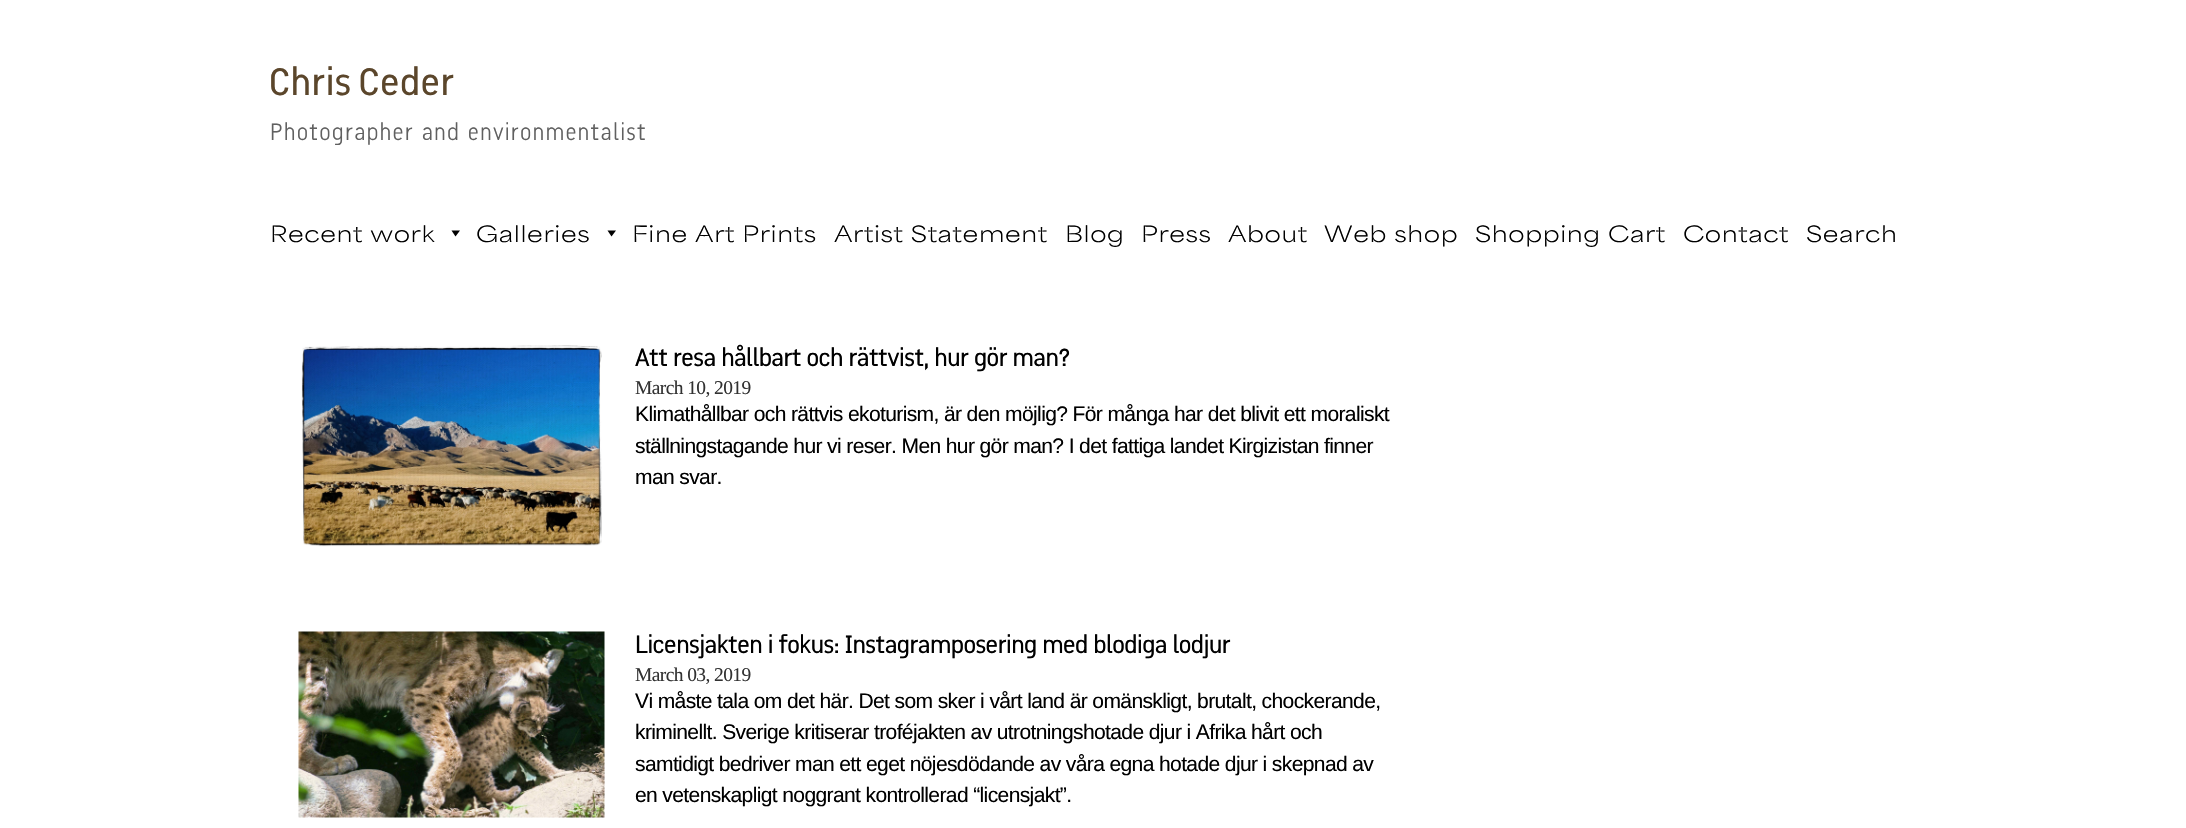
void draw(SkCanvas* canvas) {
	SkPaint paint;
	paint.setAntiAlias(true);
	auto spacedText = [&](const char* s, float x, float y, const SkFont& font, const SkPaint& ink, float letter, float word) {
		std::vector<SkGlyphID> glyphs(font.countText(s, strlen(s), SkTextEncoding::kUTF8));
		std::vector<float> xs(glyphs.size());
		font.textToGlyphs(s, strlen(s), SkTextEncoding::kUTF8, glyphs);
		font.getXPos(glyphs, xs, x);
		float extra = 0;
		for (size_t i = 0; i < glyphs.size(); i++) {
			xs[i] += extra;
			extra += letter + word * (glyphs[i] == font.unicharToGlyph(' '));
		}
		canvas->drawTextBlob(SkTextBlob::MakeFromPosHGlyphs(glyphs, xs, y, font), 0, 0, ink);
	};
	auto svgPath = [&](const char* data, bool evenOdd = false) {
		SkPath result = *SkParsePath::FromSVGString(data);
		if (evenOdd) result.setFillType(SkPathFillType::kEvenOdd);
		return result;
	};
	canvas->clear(0xffffffff);
	SkFont f1(fontMgr->matchFamilyStyle("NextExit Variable", SkFontStyle::Normal()), 43.5);
	f1.setSubpixel(true);
	paint.setColor(0xff5b462b);
	spacedText("Chris Ceder", 269, 95, f1, paint, 0.5, -3);
	SkFont f2(fontMgr->matchFamilyStyle("NextExit Variable", SkFontStyle(300, SkFontStyle::kNormal_Width, SkFontStyle::kUpright_Slant)), 27);
	f2.setSubpixel(true);
	paint.setColor(0xff606060);
	spacedText("Photographer and environmentalist", 270, 140, f2, paint, 1.6, 0);
	SkFont f3(fontMgr->matchFamilyStyle("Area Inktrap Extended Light", SkFontStyle(300, SkFontStyle::kNormal_Width, SkFontStyle::kUpright_Slant)), 21);
	f3.setSubpixel(true);
	paint.setColor(0xff000000);
	spacedText("Recent work", 270, 242, f3, paint, 0.6, 0);
	canvas->drawPath(svgPath("M460 230.5L455.5 236.5L451.5 230.5Z"), paint);
	spacedText("Galleries", 476, 242, f3, paint, 0.6, 0);
	canvas->drawPath(svgPath("M616 230.5L611.5 236.5L607.5 230.5Z"), paint);
	spacedText("Fine Art Prints", 632, 242, f3, paint, 0.6, 0);
	spacedText("Artist Statement", 834, 242, f3, paint, 0.6, 0);
	spacedText("Blog", 1065, 242, f3, paint, 0.6, 0);
	spacedText("Press", 1141, 242, f3, paint, 0.6, 0);
	spacedText("About", 1228, 242, f3, paint, 0.6, 0);
	spacedText("Web shop", 1324, 242, f3, paint, 0.6, 0);
	spacedText("Shopping Cart", 1475, 242, f3, paint, 0.6, 0);
	spacedText("Contact", 1683, 242, f3, paint, 0.6, 0);
	spacedText("Search", 1806, 242, f3, paint, 0.6, 0);
	canvas->drawImageRect(SkImages::DeferredFromEncodedData(SkData::MakeFromFileName("img1.png")), SkRect::MakeXYWH(301, 345, 301, 202), SkSamplingOptions());
	SkFont f4(fontMgr->matchFamilyStyle("NextExit Variable", SkFontStyle::Normal()), 28.5);
	f4.setSubpixel(true);
	spacedText("Att resa hållbart och rättvist, hur gör man?", 635, 366, f4, paint, -0.57, 0);
	SkFont f5(fontMgr->matchFamilyStyle("Liberation Serif", SkFontStyle::Normal()), 19.5);
	f5.setSubpixel(true);
	paint.setColor(0xff323232);
	spacedText("March 10, 2019", 635, 394, f5, paint, -0.6, 0);
	SkFont f6(fontMgr->matchFamilyStyle("Liberation Sans", SkFontStyle::Normal()), 21.05);
	f6.setSubpixel(true);
	paint.setColor(0xff000000);
	spacedText("Klimathållbar och rättvis ekoturism, är den möjlig? För många har det blivit ett moraliskt", 635, 421, f6, paint, -0.63, 0);
	spacedText("ställningstagande hur vi reser. Men hur gör man? I det fattiga landet Kirgizistan finner", 635, 453, f6, paint, -0.63, 0);
	spacedText("man svar.", 635, 484, f6, paint, -0.63, 0);
	canvas->drawImageRect(SkImages::DeferredFromEncodedData(SkData::MakeFromFileName("img2.png")), SkRect::MakeXYWH(298, 631, 307, 187), SkSamplingOptions());
	spacedText("Licensjakten i fokus: Instagramposering med blodiga lodjur", 635, 653, f4, paint, -0.57, 0);
	paint.setColor(0xff323232);
	spacedText("March 03, 2019", 635, 681, f5, paint, -0.6, 0);
	paint.setColor(0xff000000);
	spacedText("Vi måste tala om det här. Det som sker i vårt land är omänskligt, brutalt, chockerande,", 635, 708, f6, paint, -0.63, 0);
	spacedText("kriminellt. Sverige kritiserar troféjakten av utrotningshotade djur i Afrika hårt och", 635, 739, f6, paint, -0.63, 0);
	spacedText("samtidigt bedriver man ett eget nöjesdödande av våra egna hotade djur i skepnad av", 635, 771, f6, paint, -0.63, 0);
	spacedText("en vetenskapligt noggrant kontrollerad “licensjakt”.", 635, 802, f6, paint, -0.63, 0);
}
